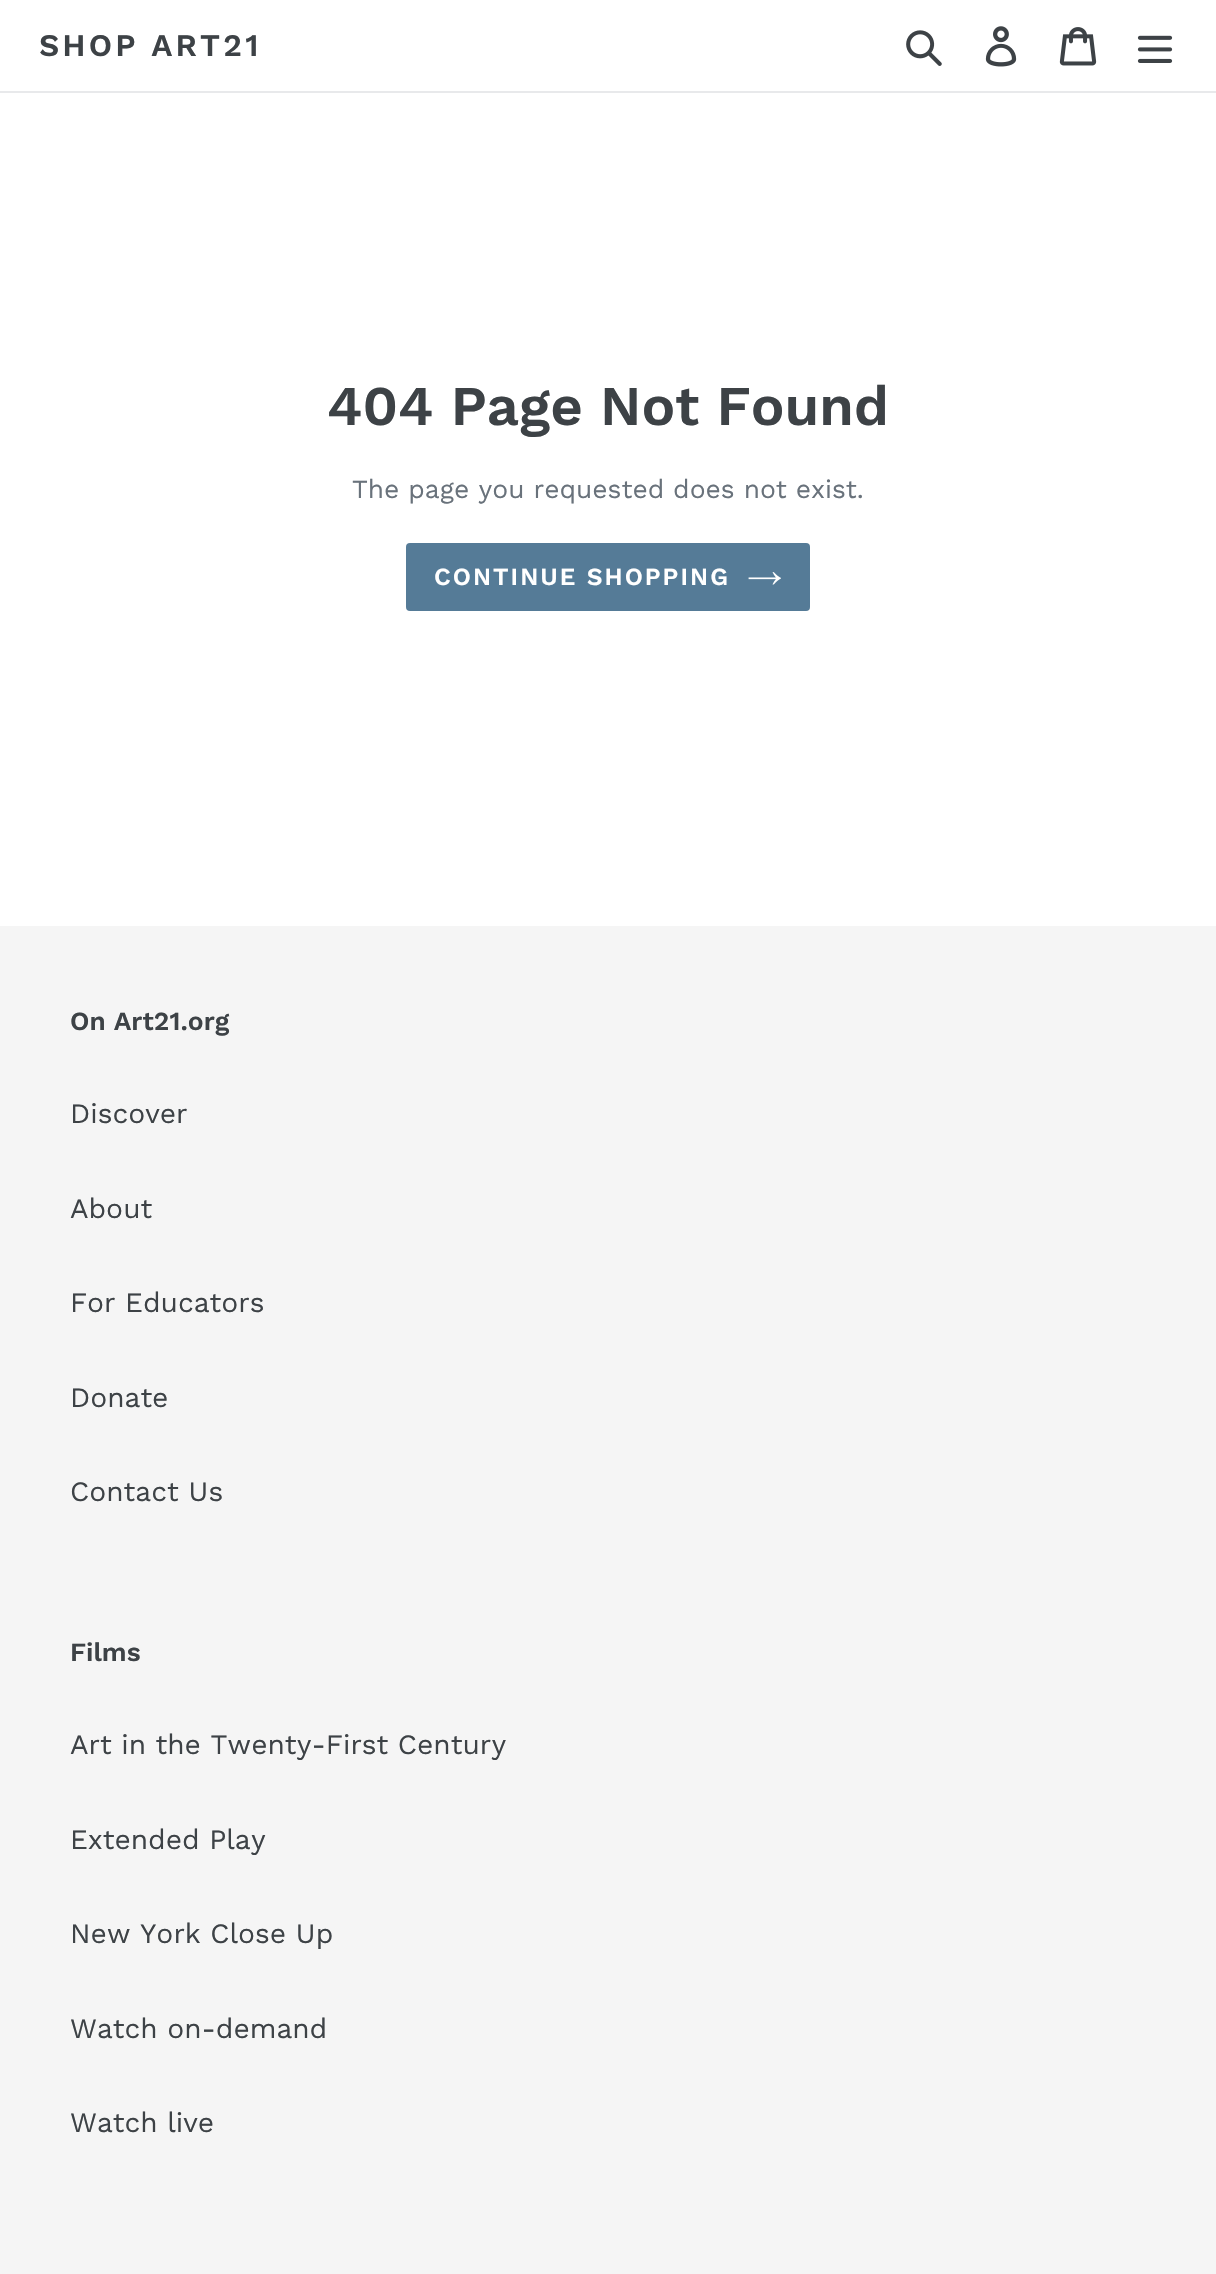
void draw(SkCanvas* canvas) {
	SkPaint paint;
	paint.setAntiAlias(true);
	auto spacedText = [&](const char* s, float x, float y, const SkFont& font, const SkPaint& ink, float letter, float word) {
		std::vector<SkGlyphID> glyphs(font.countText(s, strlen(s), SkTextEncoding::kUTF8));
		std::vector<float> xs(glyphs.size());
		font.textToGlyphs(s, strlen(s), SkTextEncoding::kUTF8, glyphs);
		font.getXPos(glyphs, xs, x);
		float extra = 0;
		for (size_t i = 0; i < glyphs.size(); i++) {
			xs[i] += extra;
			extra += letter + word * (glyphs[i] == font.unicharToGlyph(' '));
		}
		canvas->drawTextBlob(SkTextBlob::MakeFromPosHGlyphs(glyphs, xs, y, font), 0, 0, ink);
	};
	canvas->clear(0xffffffff);
	paint.setColor(0xffe8e9eb);
	canvas->drawRect(SkRect::MakeXYWH(0, 91, 1216, 2), paint);
	SkFont f1(fontMgr->matchFamilyStyle("Work Sans", SkFontStyle(600, SkFontStyle::kNormal_Width, SkFontStyle::kUpright_Slant)), 31.5);
	f1.setSubpixel(true);
	paint.setColor(0xff3d4246);
	spacedText("SHOP ART21", 39, 56, f1, paint, 3.1, 0);
	canvas->drawImageRect(SkImages::DeferredFromEncodedData(SkData::MakeFromFileName("img1.png")), SkRect::MakeXYWH(906, 30, 36, 36), SkSamplingOptions());
	canvas->drawImageRect(SkImages::DeferredFromEncodedData(SkData::MakeFromFileName("img2.png")), SkRect::MakeXYWH(985, 26, 32, 41), SkSamplingOptions());
	canvas->drawImageRect(SkImages::DeferredFromEncodedData(SkData::MakeFromFileName("img3.png")), SkRect::MakeXYWH(1059, 27, 38, 39), SkSamplingOptions());
	canvas->drawImageRect(SkImages::DeferredFromEncodedData(SkData::MakeFromFileName("img4.png")), SkRect::MakeXYWH(1137, 35, 36, 28), SkSamplingOptions());
	SkFont f2(fontMgr->matchFamilyStyle("Work Sans", SkFontStyle(600, SkFontStyle::kNormal_Width, SkFontStyle::kUpright_Slant)), 56);
	f2.setSubpixel(true);
	canvas->drawString("404 Page Not Found", 327, 425, f2, paint);
	SkFont f3(fontMgr->matchFamilyStyle("Work Sans", SkFontStyle::Normal()), 26.25);
	f3.setSubpixel(true);
	paint.setColor(0xff69727b);
	canvas->drawString("The page you requested does not exist.", 352, 498, f3, paint);
	paint.setColor(0xff557b97);
	canvas->drawRoundRect(SkRect::MakeXYWH(406, 543, 404, 68), 4, 4, paint);
	SkFont f4(fontMgr->matchFamilyStyle("Work Sans", SkFontStyle(600, SkFontStyle::kNormal_Width, SkFontStyle::kUpright_Slant)), 24.5);
	f4.setSubpixel(true);
	paint.setColor(0xffffffff);
	spacedText("CONTINUE SHOPPING", 434, 585, f4, paint, 2, 0);
	canvas->drawImageRect(SkImages::DeferredFromEncodedData(SkData::MakeFromFileName("img5.png")), SkRect::MakeXYWH(748, 572, 33, 13), SkSamplingOptions());
	paint.setColor(0xfff5f5f5);
	canvas->drawRect(SkRect::MakeXYWH(0, 926, 1216, 1348), paint);
	SkFont f5(fontMgr->matchFamilyStyle("Work Sans", SkFontStyle(600, SkFontStyle::kNormal_Width, SkFontStyle::kUpright_Slant)), 26.25);
	f5.setSubpixel(true);
	paint.setColor(0xff3d4246);
	canvas->drawString("On Art21.org", 70, 1030, f5, paint);
	SkFont f6(fontMgr->matchFamilyStyle("Work Sans", SkFontStyle::Normal()), 28);
	f6.setSubpixel(true);
	canvas->drawString("Discover", 70, 1123, f6, paint);
	canvas->drawString("About", 70, 1218, f6, paint);
	canvas->drawString("For Educators", 70, 1312, f6, paint);
	canvas->drawString("Donate", 70, 1407, f6, paint);
	canvas->drawString("Contact Us", 70, 1501, f6, paint);
	canvas->drawString("Films", 70, 1661, f5, paint);
	canvas->drawString("Art in the Twenty-First Century", 70, 1754, f6, paint);
	canvas->drawString("Extended Play", 70, 1849, f6, paint);
	canvas->drawString("New York Close Up", 70, 1943, f6, paint);
	canvas->drawString("Watch on-demand", 70, 2038, f6, paint);
	canvas->drawString("Watch live", 70, 2132, f6, paint);
}
